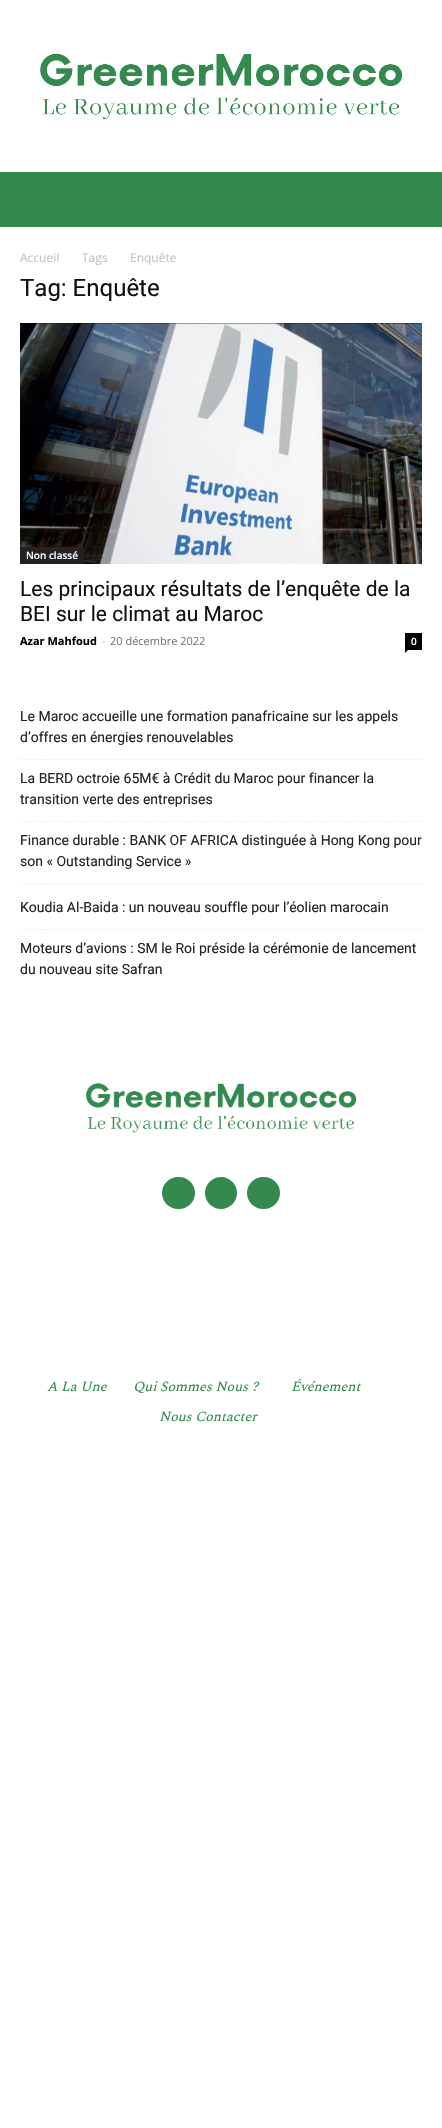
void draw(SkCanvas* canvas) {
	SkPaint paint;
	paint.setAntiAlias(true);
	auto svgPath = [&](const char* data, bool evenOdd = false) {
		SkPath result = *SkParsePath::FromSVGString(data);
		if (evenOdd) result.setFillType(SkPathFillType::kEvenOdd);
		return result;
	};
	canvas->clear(0xffffffff);
	canvas->drawImageRect(SkImages::DeferredFromEncodedData(SkData::MakeFromFileName("img1.png")), SkRect::MakeXYWH(40, 53, 363, 67), SkSamplingOptions());
	paint.setColor(0xff34894f);
	canvas->drawRect(SkRect::MakeXYWH(0, 172, 442, 55), paint);
	SkFont f1(fontMgr->matchFamilyStyle("Open Sans", SkFontStyle::Normal()), 12);
	f1.setSubpixel(true);
	paint.setColor(0xffc3c3c3);
	canvas->drawString("Accueil", 20, 262, f1, paint);
	canvas->drawString("Tags", 82, 262, f1, paint);
	canvas->drawString("Enquête", 130, 262, f1, paint);
	SkFont f2(fontMgr->matchFamilyStyle("Roboto", SkFontStyle::Normal()), 24);
	f2.setSubpixel(true);
	paint.setColor(0xff111111);
	canvas->drawString("Tag: Enquête", 20, 296, f2, paint);
	canvas->drawImageRect(SkImages::DeferredFromEncodedData(SkData::MakeFromFileName("img2.png")), SkRect::MakeXYWH(20, 323, 402, 241), SkSamplingOptions());
	paint.setColor(0xff222222);
	canvas->drawRect(SkRect::MakeXYWH(20, 547, 64, 17), paint);
	SkFont f3(fontMgr->matchFamilyStyle("Open Sans", SkFontStyle(600, SkFontStyle::kNormal_Width, SkFontStyle::kUpright_Slant)), 10);
	f3.setSubpixel(true);
	paint.setColor(0xffffffff);
	canvas->drawString("Non classé", 26, 559, f3, paint);
	SkFont f4(fontMgr->matchFamilyStyle("Roboto", SkFontStyle::Normal()), 21);
	f4.setSubpixel(true);
	paint.setColor(0xff111111);
	canvas->drawString("Les principaux résultats de l’enquête de la", 20, 596, f4, paint);
	canvas->drawString("BEI sur le climat au Maroc", 20, 621, f4, paint);
	SkFont f5(fontMgr->matchFamilyStyle("Open Sans", SkFontStyle::Bold()), 11);
	f5.setSubpixel(true);
	paint.setColor(0xff000000);
	canvas->drawString("Azar Mahfoud", 20, 645, f5, paint);
	SkFont f6(fontMgr->matchFamilyStyle("Open Sans", SkFontStyle::Normal()), 11);
	f6.setSubpixel(true);
	paint.setColor(0xffcccccc);
	canvas->drawString("-", 102, 645, f6, paint);
	paint.setColor(0xff767676);
	canvas->drawString("20 décembre 2022", 110, 645, f6, paint);
	paint.setColor(0xff000000);
	canvas->drawRect(SkRect::MakeXYWH(405, 633, 17, 17), paint);
	paint.setColor(0xffffffff);
	canvas->drawString("0", 411, 645, f3, paint);
	paint.setColor(0xff000000);
	canvas->drawPath(svgPath("M405 650H408L405 653Z"), paint);
	paint.setStroke(true);
	paint.setStrokeWidth(1);
	paint.setColor(0xfff1f1f1);
	paint.setPathEffect(SkDashPathEffect::Make({{3, 1.99f}}, 0));
	canvas->drawPath(svgPath("M20 759.5H422"), paint);
	paint.setPathEffect(nullptr);
	SkFont f7(fontMgr->matchFamilyStyle("Roboto", SkFontStyle::Normal()), 14);
	f7.setSubpixel(true);
	paint.setStroke(false);
	paint.setColor(0xff222222);
	canvas->drawString("Le Maroc accueille une formation panafricaine sur les appels", 20, 721, f7, paint);
	canvas->drawString("d’offres en énergies renouvelables", 20, 742, f7, paint);
	paint.setStroke(true);
	paint.setColor(0xfff1f1f1);
	paint.setPathEffect(SkDashPathEffect::Make({{3, 1.99f}}, 0));
	canvas->drawPath(svgPath("M20 821.5H422"), paint);
	paint.setPathEffect(nullptr);
	paint.setStroke(false);
	paint.setColor(0xff222222);
	canvas->drawString("La BERD octroie 65M€ à Crédit du Maroc pour financer la", 20, 783, f7, paint);
	canvas->drawString("transition verte des entreprises", 20, 804, f7, paint);
	paint.setStroke(true);
	paint.setColor(0xfff1f1f1);
	paint.setPathEffect(SkDashPathEffect::Make({{3, 1.99f}}, 0));
	canvas->drawPath(svgPath("M20 883.5H422"), paint);
	paint.setPathEffect(nullptr);
	paint.setStroke(false);
	paint.setColor(0xff222222);
	canvas->drawString("Finance durable : BANK OF AFRICA distinguée à Hong Kong pour", 20, 845, f7, paint);
	canvas->drawString("son « Outstanding Service »", 20, 866, f7, paint);
	paint.setStroke(true);
	paint.setColor(0xfff1f1f1);
	paint.setPathEffect(SkDashPathEffect::Make({{3, 1.99f}}, 0));
	canvas->drawPath(svgPath("M20 929.5H422"), paint);
	paint.setPathEffect(nullptr);
	paint.setStroke(false);
	paint.setColor(0xff222222);
	canvas->drawString("Koudia Al-Baida : un nouveau souffle pour l’éolien marocain", 20, 912, f7, paint);
	canvas->drawString("Moteurs d’avions : SM le Roi préside la cérémonie de lancement", 20, 953, f7, paint);
	canvas->drawString("du nouveau site Safran", 20, 974, f7, paint);
	canvas->drawImageRect(SkImages::DeferredFromEncodedData(SkData::MakeFromFileName("img3.png")), SkRect::MakeXYWH(86, 1083, 271, 50), SkSamplingOptions());
	paint.setColor(0xff34894f);
	canvas->drawRoundRect(SkRect::MakeXYWH(162, 1177, 33, 32), 16, 16, paint);
	canvas->drawCircle(221, 1193, 16, paint);
	canvas->drawRoundRect(SkRect::MakeXYWH(247, 1177, 33, 32), 16, 16, paint);
	SkFont f8(fontMgr->matchFamilyStyle("Spectral SC", SkFontStyle::Italic()), 14);
	f8.setSubpixel(true);
	canvas->drawString("A La Une", 47, 1391, f8, paint);
	canvas->drawString("Qui Sommes Nous ?", 133, 1391, f8, paint);
	canvas->drawString("Événement", 291, 1391, f8, paint);
	canvas->drawString("Nous Contacter", 159, 1421, f8, paint);
}
